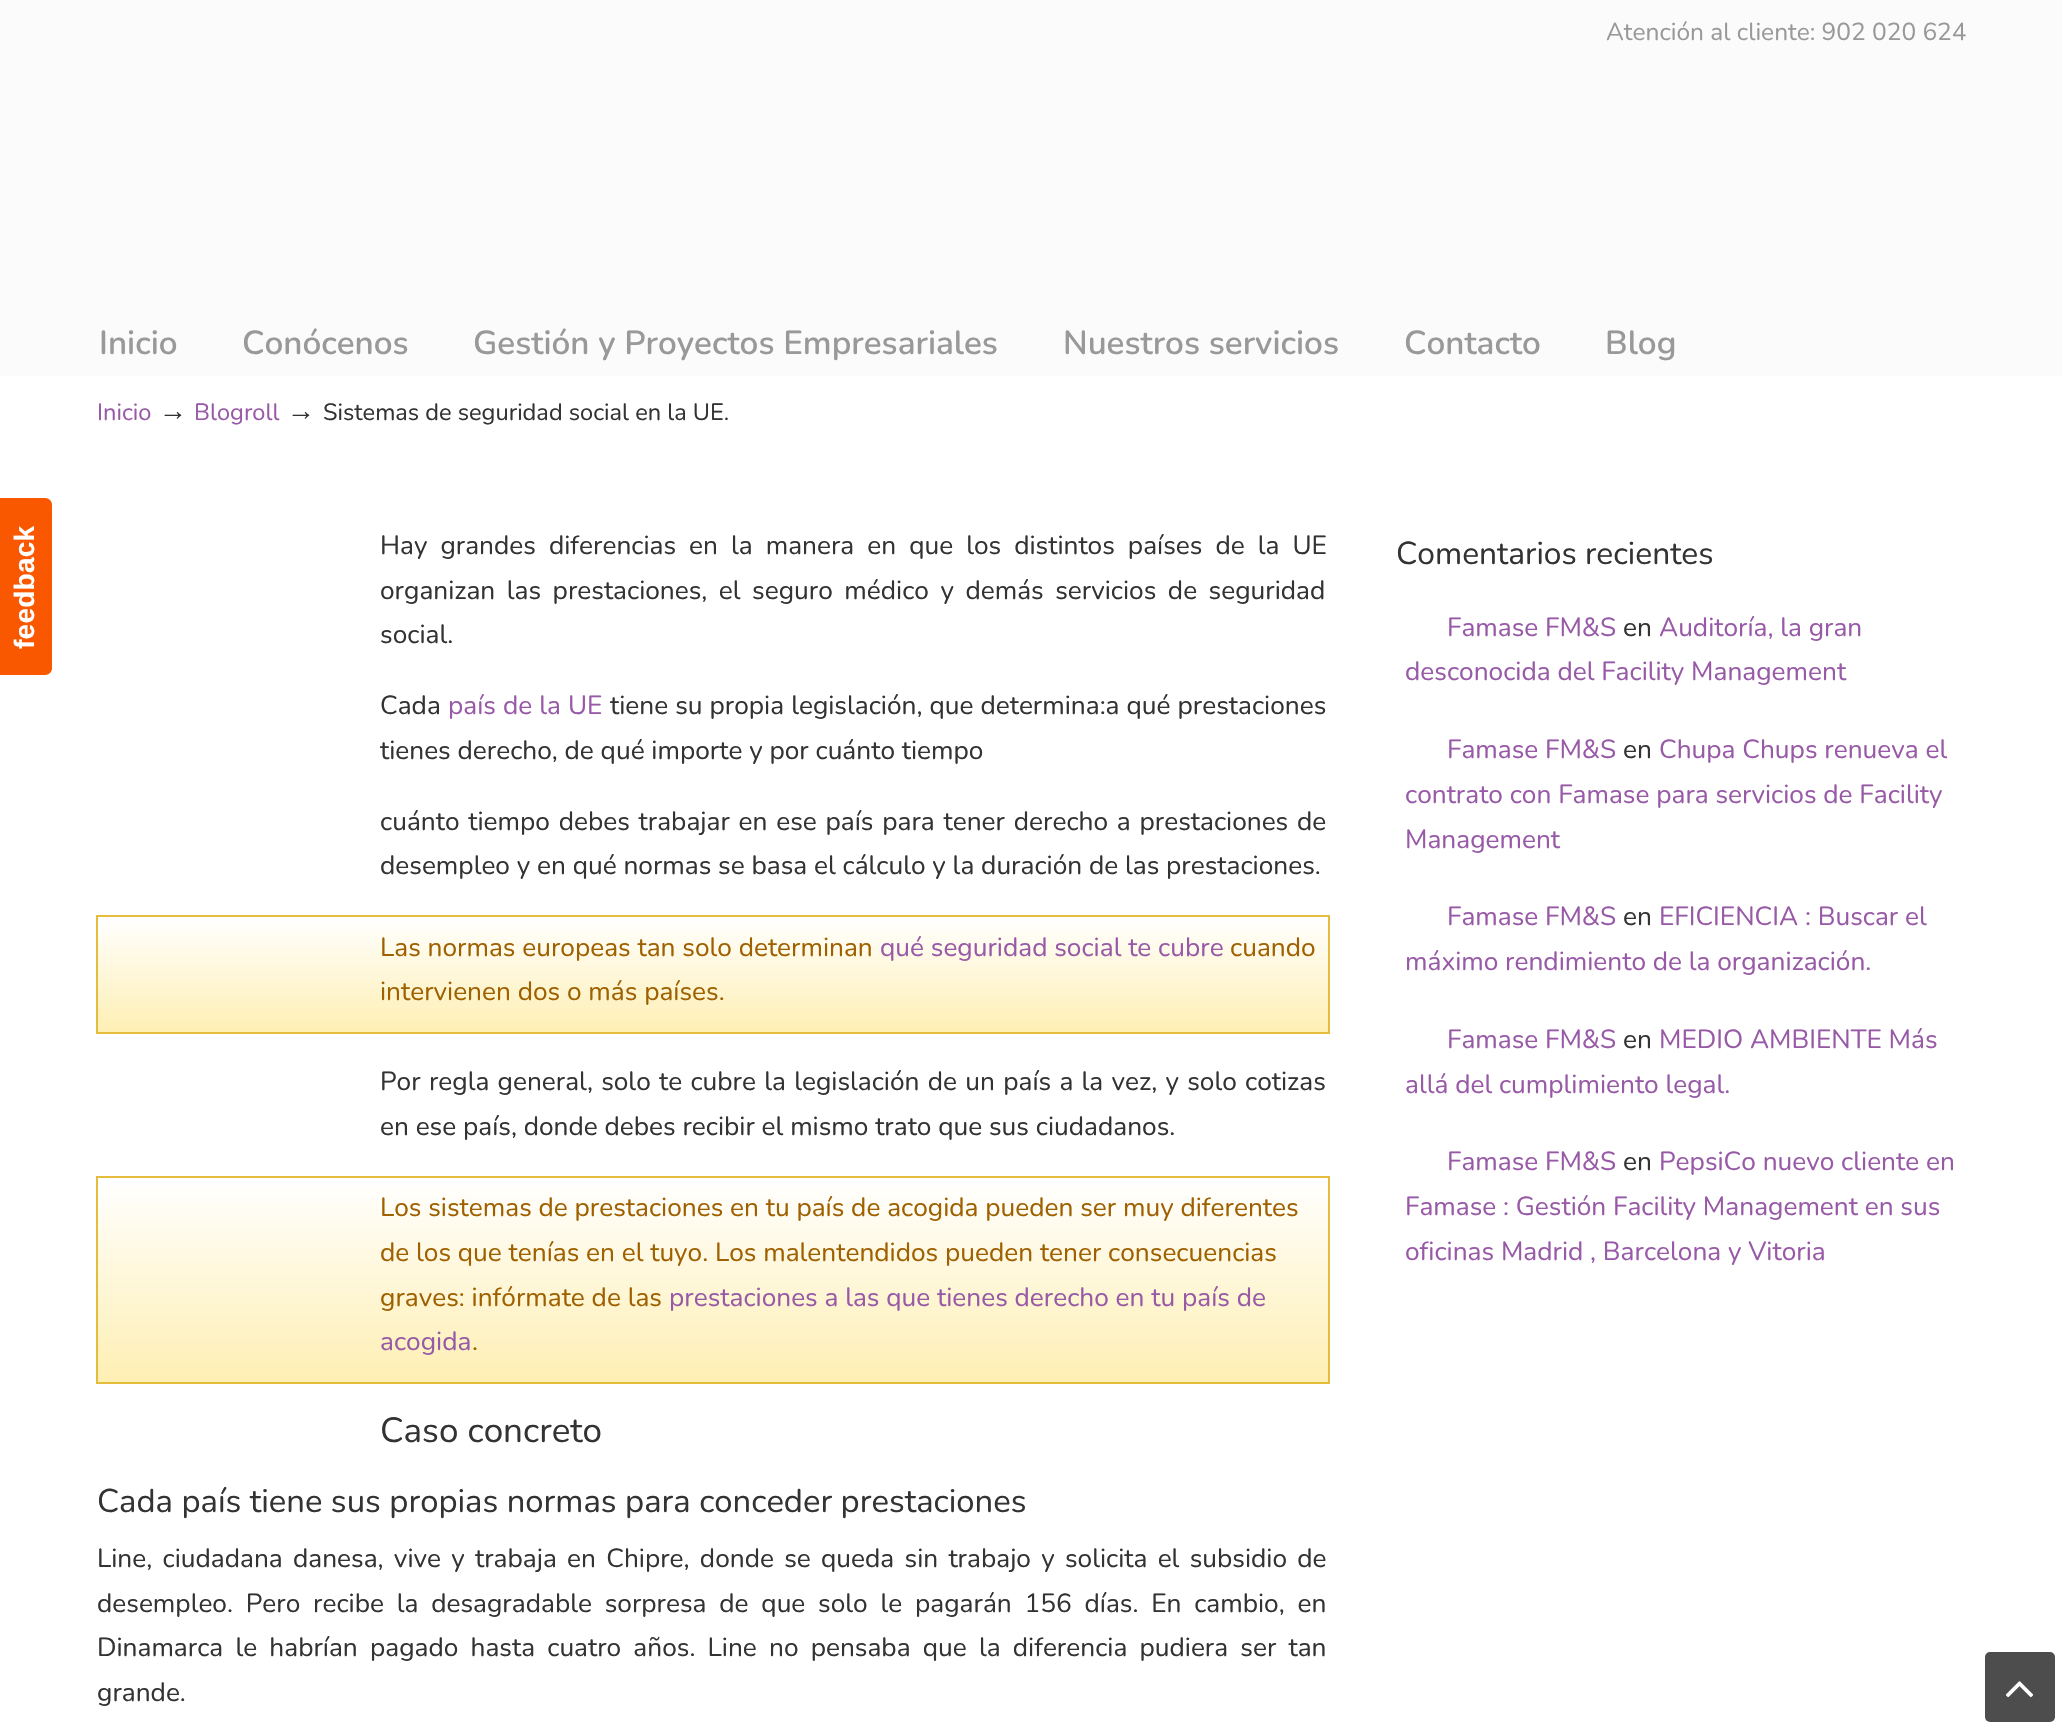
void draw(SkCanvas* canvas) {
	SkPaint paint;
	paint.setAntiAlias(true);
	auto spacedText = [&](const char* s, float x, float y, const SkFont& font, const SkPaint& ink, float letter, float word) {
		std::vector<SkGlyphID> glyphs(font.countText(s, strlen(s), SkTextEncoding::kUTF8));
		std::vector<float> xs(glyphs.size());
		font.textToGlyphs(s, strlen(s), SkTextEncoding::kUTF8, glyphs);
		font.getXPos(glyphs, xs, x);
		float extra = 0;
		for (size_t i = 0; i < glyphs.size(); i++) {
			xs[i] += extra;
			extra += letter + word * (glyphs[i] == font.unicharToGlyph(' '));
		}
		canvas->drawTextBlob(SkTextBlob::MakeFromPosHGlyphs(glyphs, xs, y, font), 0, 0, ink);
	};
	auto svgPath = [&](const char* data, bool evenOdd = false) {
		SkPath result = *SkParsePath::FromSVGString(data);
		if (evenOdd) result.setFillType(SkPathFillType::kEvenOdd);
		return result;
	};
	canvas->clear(0xfffbfbfb);
	paint.setColor(0xffffffff);
	canvas->drawRect(SkRect::MakeXYWH(0, 376, 2062, 1354), paint);
	paint.setColor(0xfff95700);
	canvas->drawPath(svgPath("M-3 675V498H45C49 498 52 501 52 505V668C52 672 49 675 45 675Z"), paint);
	SkFont f1(fontMgr->matchFamilyStyle("Liberation Sans", SkFontStyle::Bold()), 28);
	f1.setSubpixel(true);
	paint.setColor(0xffffffff);
	canvas->save();
	canvas->rotate(-90, 34, 649);
	spacedText("feedback", 34, 649, f1, paint, 0.25, 0);
	canvas->restore();
	SkFont f2(fontMgr->matchFamilyStyle("Nunito", SkFontStyle::Normal()), 24.5);
	f2.setSubpixel(true);
	paint.setColor(0xff999999);
	canvas->drawString("Atención al cliente: 902 020 624", 1606, 40, f2, paint);
	SkFont f3(fontMgr->matchFamilyStyle("Nunito", SkFontStyle(600, SkFontStyle::kNormal_Width, SkFontStyle::kUpright_Slant)), 33.25);
	f3.setSubpixel(true);
	canvas->drawString("Inicio", 99, 354, f3, paint);
	canvas->drawString("Conócenos", 242, 354, f3, paint);
	canvas->drawString("Gestión y Proyectos Empresariales", 473, 354, f3, paint);
	canvas->drawString("Nuestros servicios", 1063, 354, f3, paint);
	canvas->drawString("Contacto", 1404, 354, f3, paint);
	canvas->drawString("Blog", 1605, 354, f3, paint);
	SkFont f4(fontMgr->matchFamilyStyle("Nunito", SkFontStyle::Normal()), 23.6);
	f4.setSubpixel(true);
	paint.setColor(0xff985aa7);
	canvas->drawString("Inicio", 97, 420, f4, paint);
	SkFont f5(fontMgr->matchFamilyStyle("Liberation Serif", SkFontStyle::Normal()), 28);
	f5.setSubpixel(true);
	paint.setColor(0xff333333);
	canvas->drawString("→", 159, 420, f5, paint);
	paint.setColor(0xff985aa7);
	canvas->drawString("Blogroll", 194, 420, f4, paint);
	paint.setColor(0xff333333);
	canvas->drawString("→", 287, 420, f5, paint);
	canvas->drawString("Sistemas de seguridad social en la UE.", 323, 420, f4, paint);
	SkFont f6(fontMgr->matchFamilyStyle("Nunito", SkFontStyle::Normal()), 26.25);
	f6.setSubpixel(true);
	spacedText("Hay grandes diferencias en la manera en que los distintos países de la UE", 380, 554, f6, paint, 0, 6.25);
	spacedText("organizan las prestaciones, el seguro médico y demás servicios de seguridad", 380, 599, f6, paint, 0, 4.75);
	canvas->drawString("social.", 380, 643, f6, paint);
	canvas->drawString("Cada", 380, 714, f6, paint);
	paint.setColor(0xff985aa7);
	spacedText("país de la UE", 448, 714, f6, paint, 0, 0.25);
	paint.setColor(0xff333333);
	spacedText("tiene su propia legislación, que determina:a qué prestaciones", 610, 714, f6, paint, 0, 0.25);
	canvas->drawString("tienes derecho, de qué importe y por cuánto tiempo", 380, 759, f6, paint);
	spacedText("cuánto tiempo debes trabajar en ese país para tener derecho a prestaciones de", 380, 830, f6, paint, 0, 2);
	canvas->drawString("desempleo y en qué normas se basa el cálculo y la duración de las prestaciones.", 380, 874, f6, paint);
	{
		const SkColor colors[] = {0xffffffff, 0xfffeefb3};
		const float stops[] = {0, 1};
		const SkPoint ends[] = {{713, 917}, {713, 1033}};
		paint.setShader(SkGradientShader::MakeLinear(ends, colors, stops, 2, SkTileMode::kClamp));
		paint.setAlpha(255);
	}
	canvas->drawRect(SkRect::MakeXYWH(98, 921, 1230, 111), paint);
	paint.setStroke(true);
	paint.setStrokeWidth(2);
	paint.setShader(nullptr);
	paint.setColor(0xffe5bc3b);
	canvas->drawRect(SkRect::MakeXYWH(97, 916, 1232, 117), paint);
	paint.setStroke(false);
	paint.setColor(0xff9f6000);
	canvas->drawString("Las normas europeas tan solo determinan", 380, 956, f6, paint);
	paint.setColor(0xff985aa7);
	canvas->drawString("qué seguridad social te cubre", 880, 956, f6, paint);
	paint.setColor(0xff9f6000);
	canvas->drawString("cuando", 1230, 956, f6, paint);
	canvas->drawString("intervienen dos o más países.", 380, 1000, f6, paint);
	paint.setColor(0xff333333);
	spacedText("Por regla general, solo te cubre la legislación de un país a la vez, y solo cotizas", 380, 1090, f6, paint, 0, 1.5);
	canvas->drawString("en ese país, donde debes recibir el mismo trato que sus ciudadanos.", 380, 1135, f6, paint);
	{
		const SkColor colors[] = {0xffffffff, 0xfffeefb3};
		const float stops[] = {0, 1};
		const SkPoint ends[] = {{713, 1178}, {713, 1383}};
		paint.setShader(SkGradientShader::MakeLinear(ends, colors, stops, 2, SkTileMode::kClamp));
		paint.setAlpha(255);
	}
	canvas->drawRect(SkRect::MakeXYWH(98, 1185, 1230, 197), paint);
	paint.setStroke(true);
	paint.setShader(nullptr);
	paint.setColor(0xffe5bc3b);
	canvas->drawRect(SkRect::MakeXYWH(97, 1177, 1232, 206), paint);
	paint.setStroke(false);
	paint.setColor(0xff9f6000);
	canvas->drawString("Los sistemas de prestaciones en tu país de acogida pueden ser muy diferentes", 380, 1216, f6, paint);
	canvas->drawString("de los que tenías en el tuyo. Los malentendidos pueden tener consecuencias", 380, 1261, f6, paint);
	canvas->drawString("graves: infórmate de las", 380, 1306, f6, paint);
	paint.setColor(0xff985aa7);
	canvas->drawString("prestaciones a las que tienes derecho en tu país de", 669, 1306, f6, paint);
	canvas->drawString("acogida", 380, 1350, f6, paint);
	paint.setColor(0xff9f6000);
	canvas->drawString(".", 472, 1350, f6, paint);
	SkFont f7(fontMgr->matchFamilyStyle("Nunito", SkFontStyle::Normal()), 35);
	f7.setSubpixel(true);
	paint.setColor(0xff333333);
	canvas->drawString("Caso concreto", 380, 1442, f7, paint);
	SkFont f8(fontMgr->matchFamilyStyle("Nunito", SkFontStyle::Normal()), 32.8);
	f8.setSubpixel(true);
	canvas->drawString("Cada país tiene sus propias normas para conceder prestaciones", 97, 1512, f8, paint);
	spacedText("Line, ciudadana danesa, vive y trabaja en Chipre, donde se queda sin trabajo y solicita el subsidio de", 97, 1567, f6, paint, 0, 3.5);
	spacedText("desempleo. Pero recibe la desagradable sorpresa de que solo le pagarán 156 días. En cambio, en", 97, 1612, f6, paint, 0, 6);
	spacedText("Dinamarca le habrían pagado hasta cuatro años. Line no pensaba que la diferencia pudiera ser tan", 97, 1656, f6, paint, 0, 5.4);
	canvas->drawString("grande.", 97, 1701, f6, paint);
	SkFont f9(fontMgr->matchFamilyStyle("Nunito", SkFontStyle::Normal()), 31.75);
	f9.setSubpixel(true);
	canvas->drawString("Comentarios recientes", 1396, 564, f9, paint);
	paint.setColor(0xff985aa7);
	canvas->drawString("Famase FM&S", 1447, 636, f6, paint);
	paint.setColor(0xff333333);
	canvas->drawString("en", 1623, 636, f6, paint);
	paint.setColor(0xff985aa7);
	canvas->drawString("Auditoría, la gran", 1659, 636, f6, paint);
	canvas->drawString("desconocida del Facility Management", 1405, 680, f6, paint);
	canvas->drawString("Famase FM&S", 1447, 758, f6, paint);
	paint.setColor(0xff333333);
	canvas->drawString("en", 1623, 758, f6, paint);
	paint.setColor(0xff985aa7);
	canvas->drawString("Chupa Chups renueva el", 1659, 758, f6, paint);
	canvas->drawString("contrato con Famase para servicios de Facility", 1405, 803, f6, paint);
	canvas->drawString("Management", 1405, 848, f6, paint);
	canvas->drawString("Famase FM&S", 1447, 925, f6, paint);
	paint.setColor(0xff333333);
	canvas->drawString("en", 1623, 925, f6, paint);
	paint.setColor(0xff985aa7);
	canvas->drawString("EFICIENCIA : Buscar el", 1659, 925, f6, paint);
	canvas->drawString("máximo rendimiento de la organización.", 1405, 970, f6, paint);
	canvas->drawString("Famase FM&S", 1447, 1048, f6, paint);
	paint.setColor(0xff333333);
	canvas->drawString("en", 1623, 1048, f6, paint);
	paint.setColor(0xff985aa7);
	canvas->drawString("MEDIO AMBIENTE Más", 1659, 1048, f6, paint);
	canvas->drawString("allá del cumplimiento legal.", 1405, 1093, f6, paint);
	canvas->drawString("Famase FM&S", 1447, 1170, f6, paint);
	paint.setColor(0xff333333);
	canvas->drawString("en", 1623, 1170, f6, paint);
	paint.setColor(0xff985aa7);
	canvas->drawString("PepsiCo nuevo cliente en", 1659, 1170, f6, paint);
	canvas->drawString("Famase : Gestión Facility Management en sus", 1405, 1215, f6, paint);
	canvas->drawString("oficinas Madrid , Barcelona y Vitoria", 1405, 1260, f6, paint);
	paint.setColor(0xff4d4d4d);
	canvas->drawRoundRect(SkRect::MakeXYWH(1985, 1652, 70, 70), 5, 5, paint);
	canvas->drawImageRect(SkImages::DeferredFromEncodedData(SkData::MakeFromFileName("img1.png")), SkRect::MakeXYWH(2005, 1681, 29, 17), SkSamplingOptions());
}
